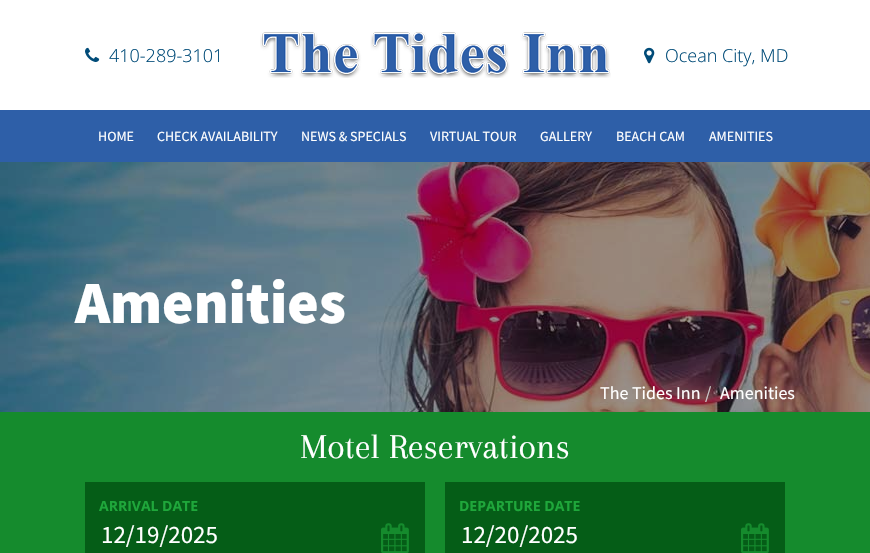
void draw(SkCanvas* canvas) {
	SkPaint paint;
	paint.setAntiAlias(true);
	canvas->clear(0xffffffff);
	canvas->drawImageRect(SkImages::DeferredFromEncodedData(SkData::MakeFromFileName("img1.png")), SkRect::MakeXYWH(85, 47, 15, 15), SkSamplingOptions());
	SkFont f1(fontMgr->matchFamilyStyle("Open Sans", SkFontStyle(300, SkFontStyle::kNormal_Width, SkFontStyle::kUpright_Slant)), 18);
	f1.setSubpixel(true);
	paint.setColor(0xff004b78);
	canvas->drawString("410-289-3101", 109, 62, f1, paint);
	canvas->drawImageRect(SkImages::DeferredFromEncodedData(SkData::MakeFromFileName("img2.png")), SkRect::MakeXYWH(260, 32, 351, 46), SkSamplingOptions());
	canvas->drawImageRect(SkImages::DeferredFromEncodedData(SkData::MakeFromFileName("img3.png")), SkRect::MakeXYWH(644, 47, 11, 17), SkSamplingOptions());
	canvas->drawString("Ocean City, MD", 665, 62, f1, paint);
	paint.setColor(0xff2e5fa8);
	canvas->drawRect(SkRect::MakeXYWH(0, 110, 870, 52), paint);
	SkFont f2(fontMgr->matchFamilyStyle("Source Sans Pro", SkFontStyle::Normal()), 14);
	f2.setSubpixel(true);
	paint.setColor(0xffffffff);
	canvas->drawString("HOME", 98, 141, f2, paint);
	canvas->drawString("CHECK AVAILABILITY", 157, 141, f2, paint);
	canvas->drawString("NEWS & SPECIALS", 301, 141, f2, paint);
	canvas->drawString("VIRTUAL TOUR", 430, 141, f2, paint);
	canvas->drawString("GALLERY", 540, 141, f2, paint);
	canvas->drawString("BEACH CAM", 616, 141, f2, paint);
	canvas->drawString("AMENITIES", 709, 141, f2, paint);
	canvas->drawImageRect(SkImages::DeferredFromEncodedData(SkData::MakeFromFileName("img4.png")), SkRect::MakeXYWH(0, 162, 870, 250), SkSamplingOptions());
	SkFont f3(fontMgr->matchFamilyStyle("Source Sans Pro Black", SkFontStyle(900, SkFontStyle::kNormal_Width, SkFontStyle::kUpright_Slant)), 60);
	f3.setSubpixel(true);
	canvas->drawString("Amenities", 75, 323, f3, paint);
	SkFont f4(fontMgr->matchFamilyStyle("Source Sans Pro", SkFontStyle::Normal()), 18);
	f4.setSubpixel(true);
	canvas->drawString("The Tides Inn", 600, 399, f4, paint);
	paint.setColor(0xffcccccc);
	canvas->drawString("/", 705, 399, f4, paint);
	paint.setColor(0xffffffff);
	canvas->drawString("Amenities", 720, 399, f4, paint);
	paint.setColor(0xff158b2d);
	canvas->drawRect(SkRect::MakeXYWH(0, 412, 870, 141), paint);
	SkFont f5(fontMgr->matchFamilyStyle("Arapey", SkFontStyle::Normal()), 36);
	f5.setSubpixel(true);
	paint.setColor(0xffffffff);
	canvas->drawString("Motel Reservations", 300, 458, f5, paint);
	paint.setColor(0xff055d17);
	canvas->drawRect(SkRect::MakeXYWH(85, 482, 340, 71), paint);
	SkFont f6(fontMgr->matchFamilyStyle("Open Sans", SkFontStyle::Bold()), 14);
	f6.setSubpixel(true);
	paint.setColor(0xff1fa73b);
	canvas->drawString("ARRIVAL DATE", 99, 511, f6, paint);
	SkFont f7(fontMgr->matchFamilyStyle("Source Sans Pro", SkFontStyle::Normal()), 25);
	f7.setSubpixel(true);
	paint.setColor(0xffffffff);
	canvas->drawString("12/19/2025", 101, 543, f7, paint);
	canvas->drawImageRect(SkImages::DeferredFromEncodedData(SkData::MakeFromFileName("img5.png")), SkRect::MakeXYWH(381, 523, 28, 30), SkSamplingOptions());
	paint.setColor(0xff055d17);
	canvas->drawRect(SkRect::MakeXYWH(445, 482, 340, 71), paint);
	paint.setColor(0xff1fa73b);
	canvas->drawString("DEPARTURE DATE", 459, 511, f6, paint);
	paint.setColor(0xffffffff);
	canvas->drawString("12/20/2025", 461, 543, f7, paint);
	canvas->drawImageRect(SkImages::DeferredFromEncodedData(SkData::MakeFromFileName("img5.png")), SkRect::MakeXYWH(741, 523, 28, 30), SkSamplingOptions());
}
